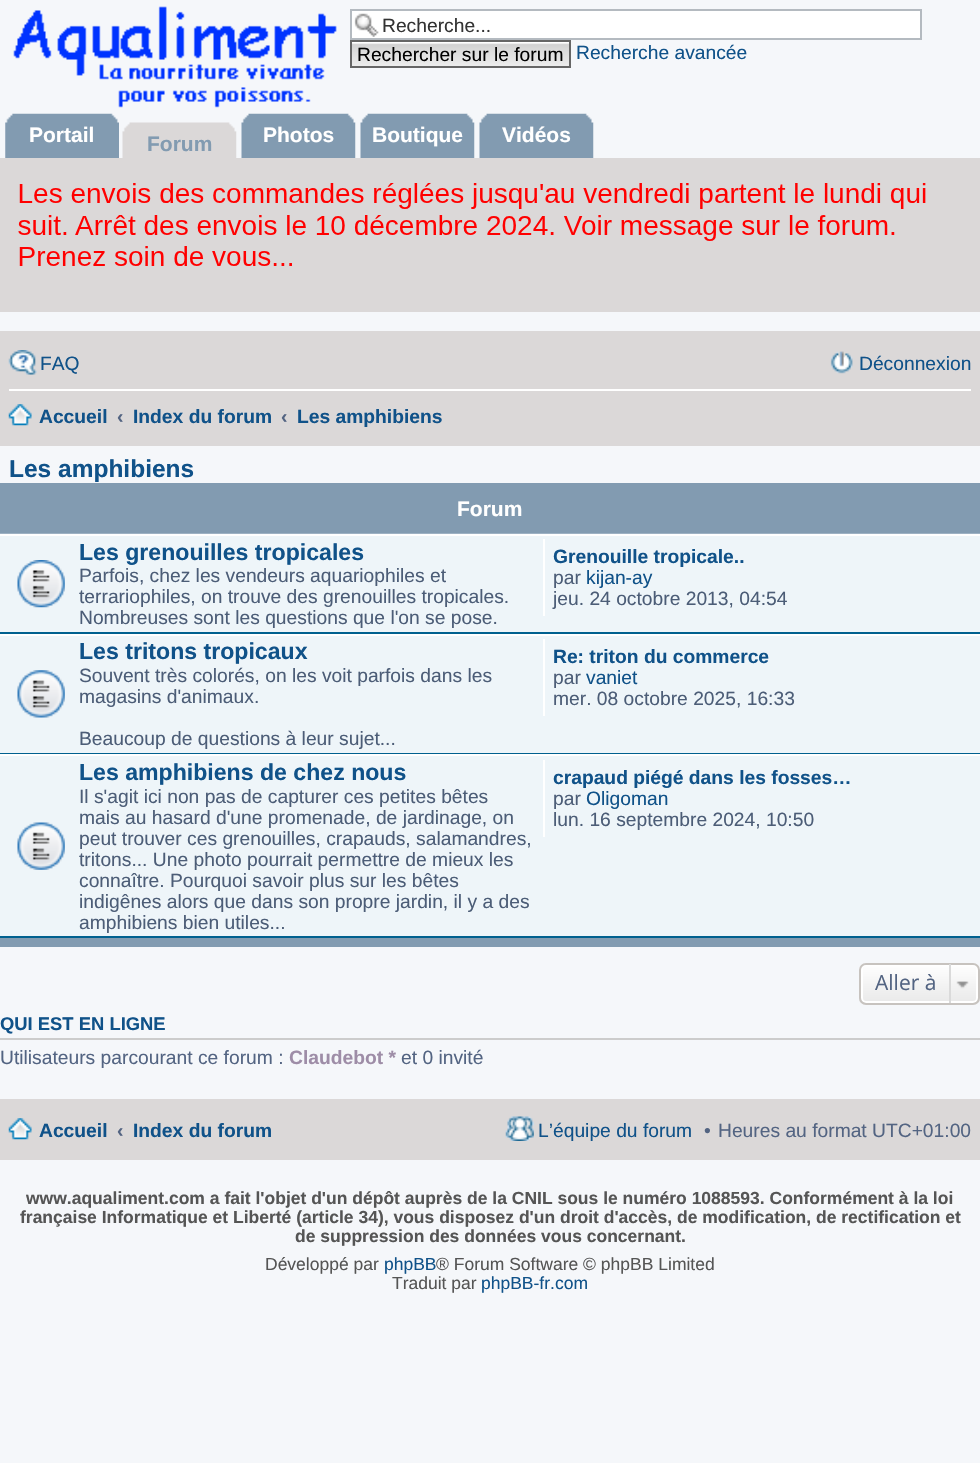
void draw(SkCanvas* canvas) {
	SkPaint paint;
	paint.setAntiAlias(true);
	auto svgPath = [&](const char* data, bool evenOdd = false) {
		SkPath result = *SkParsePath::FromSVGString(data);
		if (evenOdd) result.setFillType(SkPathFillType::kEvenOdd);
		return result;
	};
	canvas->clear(0xfff5f7fa);
	canvas->drawImageRect(SkImages::DeferredFromEncodedData(SkData::MakeFromFileName("img1.png")), SkRect::MakeXYWH(13, 6, 324, 102), SkSamplingOptions());
	paint.setColor(0xffffffff);
	canvas->drawRect(SkRect::MakeXYWH(352, 11, 568, 27), paint);
	canvas->drawImageRect(SkImages::DeferredFromEncodedData(SkData::MakeFromFileName("img2.png")), SkRect::MakeXYWH(354, 13, 25, 24), SkSamplingOptions());
	paint.setStroke(true);
	paint.setStrokeWidth(2);
	paint.setColor(0xffb4bac0);
	canvas->drawRect(SkRect::MakeXYWH(351, 10, 570, 29), paint);
	SkFont f1(fontMgr->matchFamilyStyle("Liberation Sans", SkFontStyle::Normal()), 19.25);
	f1.setSubpixel(true);
	paint.setStroke(false);
	paint.setColor(0xff333333);
	canvas->drawString("Recherche...", 382, 32, f1, paint);
	canvas->drawImageRect(SkImages::DeferredFromEncodedData(SkData::MakeFromFileName("img3.png")), SkRect::MakeXYWH(352, 42, 217, 24), SkSamplingOptions());
	paint.setStroke(true);
	paint.setColor(0xff666666);
	canvas->drawRect(SkRect::MakeXYWH(351, 41, 219, 26), paint);
	paint.setStroke(false);
	paint.setColor(0xff000000);
	canvas->drawString("Rechercher sur le forum", 357, 61, f1, paint);
	paint.setColor(0xff105289);
	canvas->drawString("Recherche avancée", 576, 59, f1, paint);
	canvas->drawImageRect(SkImages::DeferredFromEncodedData(SkData::MakeFromFileName("img4.png")), SkRect::MakeXYWH(5, 113, 114, 45), SkSamplingOptions());
	SkFont f2(fontMgr->matchFamilyStyle("Liberation Sans", SkFontStyle::Bold()), 21);
	f2.setSubpixel(true);
	paint.setColor(0xffffffff);
	canvas->drawString("Portail", 29, 142, f2, paint);
	canvas->drawImageRect(SkImages::DeferredFromEncodedData(SkData::MakeFromFileName("img5.png")), SkRect::MakeXYWH(122, 122, 115, 36), SkSamplingOptions());
	paint.setColor(0xff829bb1);
	canvas->drawString("Forum", 147, 151, f2, paint);
	canvas->drawImageRect(SkImages::DeferredFromEncodedData(SkData::MakeFromFileName("img6.png")), SkRect::MakeXYWH(241, 113, 115, 45), SkSamplingOptions());
	paint.setColor(0xffffffff);
	canvas->drawString("Photos", 263, 142, f2, paint);
	canvas->drawImageRect(SkImages::DeferredFromEncodedData(SkData::MakeFromFileName("img7.png")), SkRect::MakeXYWH(360, 113, 115, 45), SkSamplingOptions());
	canvas->drawString("Boutique", 372, 142, f2, paint);
	canvas->drawImageRect(SkImages::DeferredFromEncodedData(SkData::MakeFromFileName("img7.png")), SkRect::MakeXYWH(479, 113, 115, 45), SkSamplingOptions());
	canvas->drawString("Vidéos", 502, 142, f2, paint);
	paint.setColor(0xffdbd8d8);
	canvas->drawRect(SkRect::MakeXYWH(0, 158, 980, 154), paint);
	canvas->drawImageRect(SkImages::DeferredFromEncodedData(SkData::MakeFromFileName("img8.png")), SkRect::MakeXYWH(18, 183, 908, 83), SkSamplingOptions());
	canvas->drawRect(SkRect::MakeXYWH(0, 331, 980, 115), paint);
	canvas->drawImageRect(SkImages::DeferredFromEncodedData(SkData::MakeFromFileName("img9.png")), SkRect::MakeXYWH(8, 350, 29, 25), SkSamplingOptions());
	paint.setColor(0xff105289);
	canvas->drawString("FAQ", 40, 370, f1, paint);
	canvas->drawImageRect(SkImages::DeferredFromEncodedData(SkData::MakeFromFileName("img10.png")), SkRect::MakeXYWH(830, 351, 23, 23), SkSamplingOptions());
	canvas->drawString("Déconnexion", 859, 370, f1, paint);
	paint.setColor(0xffffffff);
	canvas->drawRect(SkRect::MakeXYWH(9, 389, 962, 2), paint);
	canvas->drawImageRect(SkImages::DeferredFromEncodedData(SkData::MakeFromFileName("img11.png")), SkRect::MakeXYWH(8, 404, 24, 22), SkSamplingOptions());
	SkFont f3(fontMgr->matchFamilyStyle("Liberation Sans", SkFontStyle::Bold()), 19.25);
	f3.setSubpixel(true);
	paint.setColor(0xff105289);
	canvas->drawString("Accueil", 39, 423, f3, paint);
	paint.setColor(0xff536482);
	canvas->drawString("‹", 117, 423, f3, paint);
	paint.setColor(0xff105289);
	canvas->drawString("Index du forum", 133, 423, f3, paint);
	paint.setColor(0xff536482);
	canvas->drawString("‹", 281, 423, f3, paint);
	paint.setColor(0xff105289);
	canvas->drawString("Les amphibiens", 297, 423, f3, paint);
	SkFont f4(fontMgr->matchFamilyStyle("Liberation Sans", SkFontStyle::Bold()), 24.5);
	f4.setSubpixel(true);
	canvas->drawString("Les amphibiens", 9, 477, f4, paint);
	paint.setColor(0xff829bb1);
	canvas->drawRect(SkRect::MakeXYWH(0, 483, 980, 464), paint);
	paint.setColor(0xffffffff);
	canvas->drawString("Forum", 457, 516, f2, paint);
	paint.setColor(0xffeef5f9);
	canvas->drawRect(SkRect::MakeXYWH(0, 536, 980, 400), paint);
	paint.setColor(0xff9db1c3);
	canvas->drawRect(SkRect::MakeXYWH(0, 533, 980, 1), paint);
	paint.setColor(0xffffffff);
	canvas->drawRect(SkRect::MakeXYWH(0, 534, 980, 2), paint);
	paint.setColor(0xff00608f);
	canvas->drawRect(SkRect::MakeXYWH(0, 632, 980, 2), paint);
	canvas->drawImageRect(SkImages::DeferredFromEncodedData(SkData::MakeFromFileName("img12.png")), SkRect::MakeXYWH(17, 560, 48, 48), SkSamplingOptions());
	SkFont f5(fontMgr->matchFamilyStyle("Liberation Sans", SkFontStyle::Bold()), 23.1);
	f5.setSubpixel(true);
	paint.setColor(0xff105289);
	canvas->drawString("Les grenouilles tropicales", 79, 560, f5, paint);
	paint.setColor(0xff4c5d77);
	canvas->drawString("Parfois, chez les vendeurs aquariophiles et", 79, 582, f1, paint);
	canvas->drawString("terrariophiles, on trouve des grenouilles tropicales.", 79, 603, f1, paint);
	canvas->drawString("Nombreuses sont les questions que l'on se pose.", 79, 624, f1, paint);
	paint.setColor(0xffffffff);
	canvas->drawRect(SkRect::MakeXYWH(543, 539, 2, 77), paint);
	paint.setColor(0xff105289);
	canvas->drawString("Grenouille tropicale..", 553, 563, f3, paint);
	paint.setColor(0xff4c5d77);
	canvas->drawString("par", 553, 584, f1, paint);
	paint.setColor(0xff105289);
	canvas->drawString("kijan-ay", 586, 584, f1, paint);
	paint.setColor(0xff4c5d77);
	canvas->drawString("jeu. 24 octobre 2013, 04:54", 553, 605, f1, paint);
	paint.setColor(0xffffffff);
	canvas->drawRect(SkRect::MakeXYWH(0, 634, 980, 2), paint);
	paint.setColor(0xff00608f);
	canvas->drawRect(SkRect::MakeXYWH(0, 753, 980, 1), paint);
	canvas->drawImageRect(SkImages::DeferredFromEncodedData(SkData::MakeFromFileName("img13.png")), SkRect::MakeXYWH(17, 670, 48, 48), SkSamplingOptions());
	paint.setColor(0xff105289);
	canvas->drawString("Les tritons tropicaux", 79, 659, f5, paint);
	paint.setColor(0xff4c5d77);
	canvas->drawString("Souvent très colorés, on les voit parfois dans les", 79, 682, f1, paint);
	canvas->drawString("magasins d'animaux.", 79, 703, f1, paint);
	canvas->drawString("Beaucoup de questions à leur sujet...", 79, 745, f1, paint);
	paint.setColor(0xffffffff);
	canvas->drawRect(SkRect::MakeXYWH(543, 639, 2, 77), paint);
	paint.setColor(0xff105289);
	canvas->drawString("Re: triton du commerce", 553, 663, f3, paint);
	paint.setColor(0xff4c5d77);
	canvas->drawString("par", 553, 684, f1, paint);
	paint.setColor(0xff105289);
	canvas->drawString("vaniet", 586, 684, f1, paint);
	paint.setColor(0xff4c5d77);
	canvas->drawString("mer. 08 octobre 2025, 16:33", 553, 705, f1, paint);
	paint.setColor(0xffffffff);
	canvas->drawRect(SkRect::MakeXYWH(0, 754, 980, 2), paint);
	paint.setColor(0xff00608f);
	canvas->drawRect(SkRect::MakeXYWH(0, 936, 980, 2), paint);
	canvas->drawImageRect(SkImages::DeferredFromEncodedData(SkData::MakeFromFileName("img14.png")), SkRect::MakeXYWH(17, 822, 48, 48), SkSamplingOptions());
	paint.setColor(0xff105289);
	canvas->drawString("Les amphibiens de chez nous", 79, 780, f5, paint);
	paint.setColor(0xff4c5d77);
	canvas->drawString("Il s'agit ici non pas de capturer ces petites bêtes", 79, 803, f1, paint);
	canvas->drawString("mais au hasard d'une promenade, de jardinage, on", 79, 824, f1, paint);
	canvas->drawString("peut trouver ces grenouilles, crapauds, salamandres,", 79, 845, f1, paint);
	canvas->drawString("tritons... Une photo pourrait permettre de mieux les", 79, 866, f1, paint);
	canvas->drawString("connaître. Pourquoi savoir plus sur les bêtes", 79, 887, f1, paint);
	canvas->drawString("indigênes alors que dans son propre jardin, il y a des", 79, 908, f1, paint);
	canvas->drawString("amphibiens bien utiles...", 79, 929, f1, paint);
	paint.setColor(0xffffffff);
	canvas->drawRect(SkRect::MakeXYWH(543, 760, 2, 77), paint);
	paint.setColor(0xff105289);
	canvas->drawString("crapaud piégé dans les fosses…", 553, 784, f3, paint);
	paint.setColor(0xff4c5d77);
	canvas->drawString("par", 553, 805, f1, paint);
	paint.setColor(0xff105289);
	canvas->drawString("Oligoman", 586, 805, f1, paint);
	paint.setColor(0xff4c5d77);
	canvas->drawString("lun. 16 septembre 2024, 10:50", 553, 826, f1, paint);
	canvas->save();
	canvas->clipPath(svgPath("M866 963H973C977 963 980 966 980 970V998C980 1002 977 1005 973 1005H866C862 1005 859 1002 859 998V970C859 966 862 963 866 963Z"), true);
	{
		const SkColor colors[] = {0xffffffff, 0xffe9e9e9};
		const float stops[] = {0, 1};
		const SkPoint ends[] = {{920, 964}, {920, 1003}};
		paint.setShader(SkGradientShader::MakeLinear(ends, colors, stops, 2, SkTileMode::kClamp));
		paint.setAlpha(255);
	}
	canvas->drawRect(SkRect::MakeXYWH(859, 964, 121, 39), paint);
	canvas->restore();
	paint.setStroke(true);
	paint.setShader(nullptr);
	paint.setColor(0xffffffff);
	canvas->drawRoundRect(SkRect::MakeXYWH(862, 965, 115, 37), 4, 4, paint);
	paint.setColor(0xffc7c3bf);
	canvas->drawRoundRect(SkRect::MakeXYWH(860, 964, 119, 40), 6, 6, paint);
	SkFont f6(fontMgr->matchFamilyStyle("Open Sans", SkFontStyle::Normal()), 21);
	f6.setSubpixel(true);
	paint.setStroke(false);
	paint.setColor(0xff536482);
	canvas->drawString("Aller à", 875, 990, f6, paint);
	canvas->drawImageRect(SkImages::DeferredFromEncodedData(SkData::MakeFromFileName("img15.png")), SkRect::MakeXYWH(956, 981, 13, 8), SkSamplingOptions());
	paint.setColor(0xffdadada);
	canvas->drawRect(SkRect::MakeXYWH(949, 964, 2, 39), paint);
	paint.setColor(0xffcccccc);
	canvas->drawRect(SkRect::MakeXYWH(0, 1038, 980, 2), paint);
	SkFont f7(fontMgr->matchFamilyStyle("Liberation Sans", SkFontStyle::Bold()), 18.4);
	f7.setSubpixel(true);
	paint.setColor(0xff105289);
	canvas->drawString("QUI EST EN LIGNE", 0, 1030, f7, paint);
	paint.setColor(0xff536482);
	canvas->drawString("Utilisateurs parcourant ce forum :", 0, 1064, f1, paint);
	paint.setColor(0xff9e8da7);
	canvas->drawString("Claudebot *", 289, 1064, f3, paint);
	paint.setColor(0xff536482);
	canvas->drawString("et 0 invité", 401, 1064, f1, paint);
	paint.setColor(0xffdbd8d8);
	canvas->drawRect(SkRect::MakeXYWH(0, 1099, 980, 61), paint);
	canvas->drawImageRect(SkImages::DeferredFromEncodedData(SkData::MakeFromFileName("img11.png")), SkRect::MakeXYWH(8, 1118, 24, 22), SkSamplingOptions());
	paint.setColor(0xff105289);
	canvas->drawString("Accueil", 39, 1137, f3, paint);
	paint.setColor(0xff536482);
	canvas->drawString("‹", 117, 1137, f3, paint);
	paint.setColor(0xff105289);
	canvas->drawString("Index du forum", 133, 1137, f3, paint);
	canvas->drawImageRect(SkImages::DeferredFromEncodedData(SkData::MakeFromFileName("img16.png")), SkRect::MakeXYWH(505, 1116, 29, 25), SkSamplingOptions());
	canvas->drawString("L’équipe du forum", 538, 1137, f1, paint);
	paint.setColor(0xff536482);
	canvas->drawString("•", 704, 1137, f1, paint);
	canvas->drawString("Heures au format UTC+01:00", 718, 1137, f1, paint);
	SkFont f8(fontMgr->matchFamilyStyle("Liberation Sans", SkFontStyle::Bold()), 17.5);
	f8.setSubpixel(true);
	paint.setColor(0xff555555);
	canvas->drawString("www.aqualiment.com a fait l'objet d'un dépôt auprès de la CNIL sous le numéro 1088593. Conformément à la loi", 26, 1204, f8, paint);
	canvas->drawString("française Informatique et Liberté (article 34), vous disposez d'un droit d'accès, de modification, de rectification et", 20, 1223, f8, paint);
	canvas->drawString("de suppression des données vous concernant.", 295, 1242, f8, paint);
	SkFont f9(fontMgr->matchFamilyStyle("Liberation Sans", SkFontStyle::Normal()), 17.5);
	f9.setSubpixel(true);
	canvas->drawString("Développé par", 265, 1270, f9, paint);
	paint.setColor(0xff105289);
	canvas->drawString("phpBB", 384, 1270, f9, paint);
	paint.setColor(0xff555555);
	canvas->drawString("® Forum Software © phpBB Limited", 436, 1270, f9, paint);
	canvas->drawString("Traduit par", 392, 1289, f9, paint);
	paint.setColor(0xff105289);
	canvas->drawString("phpBB-fr.com", 481, 1289, f9, paint);
}
